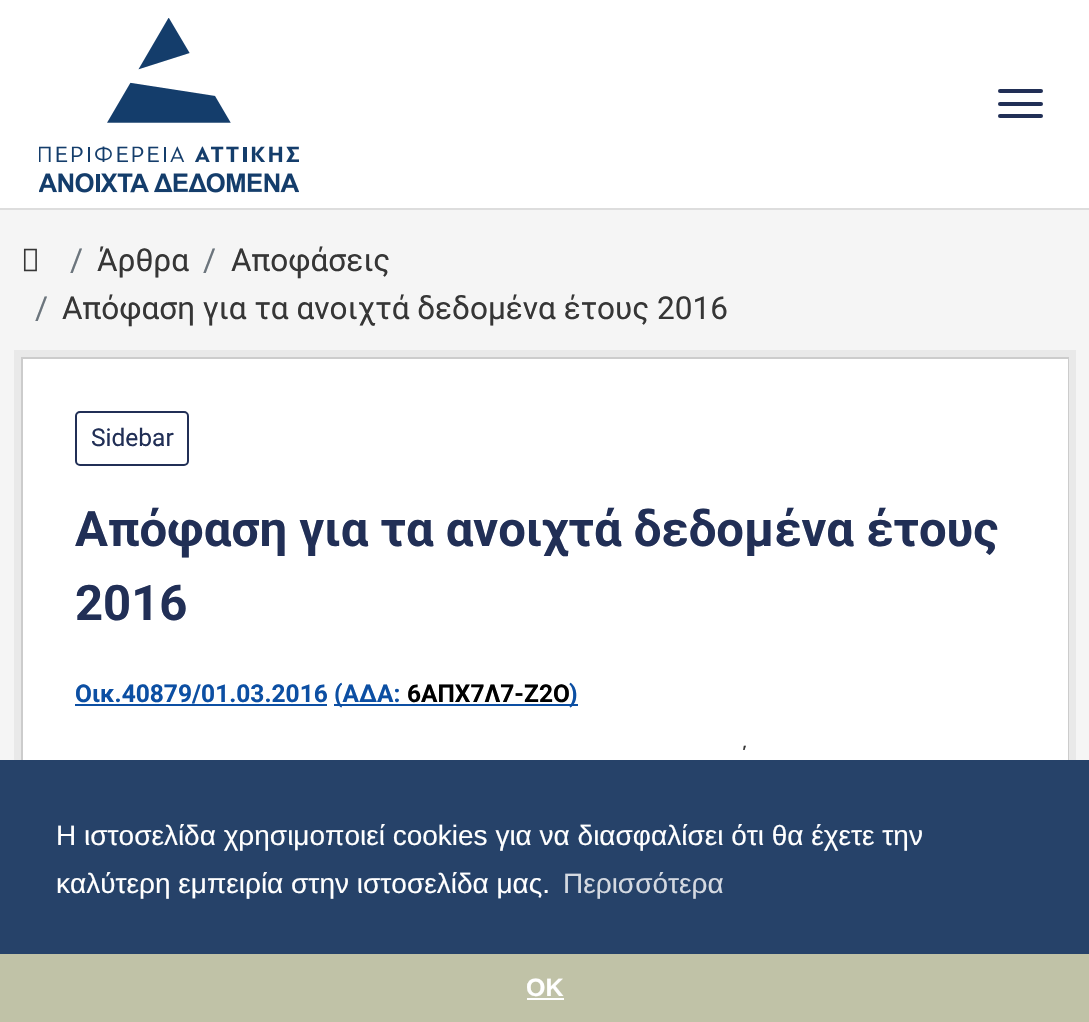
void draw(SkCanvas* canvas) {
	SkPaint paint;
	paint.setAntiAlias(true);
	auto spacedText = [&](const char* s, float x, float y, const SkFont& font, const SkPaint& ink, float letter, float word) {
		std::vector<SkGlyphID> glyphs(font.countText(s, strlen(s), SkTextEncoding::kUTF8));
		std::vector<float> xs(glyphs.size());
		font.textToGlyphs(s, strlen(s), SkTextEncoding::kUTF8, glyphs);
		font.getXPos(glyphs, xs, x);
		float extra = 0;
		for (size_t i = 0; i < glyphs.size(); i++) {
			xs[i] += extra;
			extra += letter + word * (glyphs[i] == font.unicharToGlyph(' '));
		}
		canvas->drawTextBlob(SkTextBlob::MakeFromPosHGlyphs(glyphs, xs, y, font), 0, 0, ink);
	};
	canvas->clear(0xfff5f5f5);
	paint.setColor(0xffffffff);
	canvas->drawRect(SkRect::MakeXYWH(0, 0, 1089, 208), paint);
	paint.setColor(0xffdddddd);
	canvas->drawRect(SkRect::MakeXYWH(0, 208, 1089, 2), paint);
	canvas->drawImageRect(SkImages::DeferredFromEncodedData(SkData::MakeFromFileName("img1.png")), SkRect::MakeXYWH(39, 18, 260, 175), SkSamplingOptions());
	paint.setColor(0xff212f56);
	canvas->drawRoundRect(SkRect::MakeXYWH(998, 102, 45, 4), 2, 2, paint);
	canvas->drawRoundRect(SkRect::MakeXYWH(998, 89, 45, 4), 2, 2, paint);
	canvas->drawRoundRect(SkRect::MakeXYWH(998, 114, 45, 4), 2, 2, paint);
	canvas->drawImageRect(SkImages::DeferredFromEncodedData(SkData::MakeFromFileName("img2.png")), SkRect::MakeXYWH(23, 248, 14, 24), SkSamplingOptions());
	SkFont f1(fontMgr->matchFamilyStyle("Roboto", SkFontStyle::Normal()), 31.5);
	f1.setSubpixel(true);
	paint.setColor(0xff6c757d);
	canvas->drawString("/", 70, 271, f1, paint);
	paint.setColor(0xff363636);
	canvas->drawString("Άρθρα", 97, 271, f1, paint);
	paint.setColor(0xff6c757d);
	canvas->drawString("/", 203, 271, f1, paint);
	paint.setColor(0xff363636);
	canvas->drawString("Αποφάσεις", 231, 271, f1, paint);
	paint.setColor(0xff6c757d);
	canvas->drawString("/", 35, 319, f1, paint);
	paint.setColor(0xff363636);
	canvas->drawString("Απόφαση για τα ανοιχτά δεδομένα έτους 2016", 62, 319, f1, paint);
	paint.setStroke(true);
	paint.setStrokeWidth(7);
	paint.setColor(0xffe9e9e9);
	canvas->drawRect(SkRect::MakeXYWH(17.5, 353.5, 1055, 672), paint);
	paint.setStrokeWidth(2);
	paint.setColor(0xffcccccc);
	canvas->drawRect(SkRect::MakeXYWH(22, 358, 1046, 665), paint);
	paint.setStroke(false);
	paint.setColor(0xffffffff);
	canvas->drawRect(SkRect::MakeXYWH(23, 359, 1045, 401), paint);
	paint.setStroke(true);
	paint.setColor(0xff212f56);
	canvas->drawRoundRect(SkRect::MakeXYWH(76, 412, 112, 53), 4, 4, paint);
	SkFont f2(fontMgr->matchFamilyStyle("Roboto", SkFontStyle::Normal()), 24.5);
	f2.setSubpixel(true);
	paint.setStroke(false);
	canvas->drawString("Sidebar", 91, 446, f2, paint);
	SkFont f3(fontMgr->matchFamilyStyle("Roboto", SkFontStyle::Bold()), 49);
	f3.setSubpixel(true);
	canvas->drawString("Απόφαση για τα ανοιχτά δεδομένα έτους", 75, 546, f3, paint);
	canvas->drawString("2016", 75, 620, f3, paint);
	SkFont f4(fontMgr->matchFamilyStyle("Roboto", SkFontStyle::Bold()), 24.5);
	f4.setSubpixel(true);
	paint.setColor(0xff0c4fa3);
	canvas->drawString("Οικ.40879/01.03.2016", 75, 702, f4, paint);
	canvas->drawRect(SkRect::MakeXYWH(75, 704, 252, 2), paint);
	canvas->drawRect(SkRect::MakeXYWH(334, 704, 244, 2), paint);
	canvas->drawString("(ΑΔΑ:", 334, 702, f4, paint);
	paint.setColor(0xff000000);
	canvas->drawString("6ΑΠΧ7Λ7-Ζ2Ο", 407, 702, f4, paint);
	paint.setColor(0xff0c4fa3);
	canvas->drawString(")", 569, 702, f4, paint);
	paint.setColor(0xff363636);
	spacedText("΄", 741, 765, f2, paint, 0, 4);
	paint.setColor(0xff264269);
	canvas->drawRect(SkRect::MakeXYWH(0, 760, 1089, 194), paint);
	SkFont f5(fontMgr->matchFamilyStyle("Liberation Sans", SkFontStyle::Normal()), 28);
	f5.setSubpixel(true);
	paint.setColor(0xffffffff);
	canvas->drawString("Η ιστοσελίδα χρησιμοποιεί cookies για να διασφαλίσει ότι θα έχετε την", 56, 845, f5, paint);
	canvas->drawString("καλύτερη εμπειρία στην ιστοσελίδα μας.", 56, 893, f5, paint);
	paint.setColor(0xffd4d9e1);
	canvas->drawString("Περισσότερα", 563, 893, f5, paint);
	paint.setColor(0xffc0c2a7);
	canvas->drawRect(SkRect::MakeXYWH(0, 954, 1089, 68), paint);
	SkFont f6(fontMgr->matchFamilyStyle("Liberation Sans", SkFontStyle::Bold()), 25);
	f6.setSubpixel(true);
	paint.setColor(0xffffffff);
	canvas->drawString("OK", 526, 996, f6, paint);
	canvas->drawRect(SkRect::MakeXYWH(527, 998, 37, 2), paint);
}
